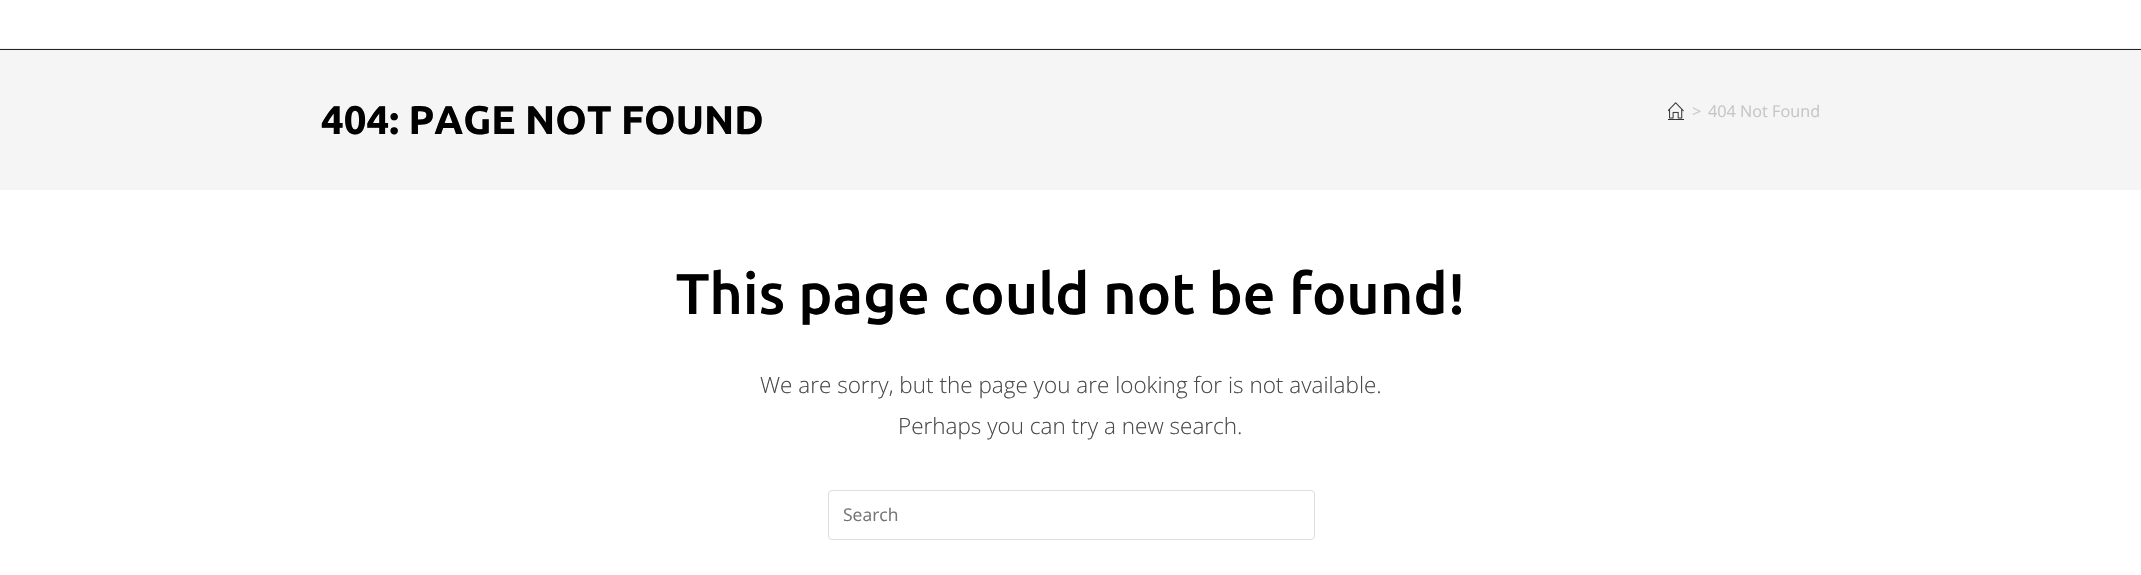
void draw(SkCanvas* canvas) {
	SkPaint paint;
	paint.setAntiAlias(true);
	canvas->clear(0xffffffff);
	paint.setColor(0xfff1f1f1);
	canvas->drawRect(SkRect::MakeXYWH(0, 48, 2141, 1), paint);
	paint.setColor(0xff232323);
	canvas->drawRect(SkRect::MakeXYWH(0, 49, 2141, 1), paint);
	paint.setColor(0xfff5f5f5);
	canvas->drawRect(SkRect::MakeXYWH(0, 50, 2141, 140), paint);
	SkFont f1(fontMgr->matchFamilyStyle("Ubuntu", SkFontStyle::Bold()), 40);
	f1.setSubpixel(true);
	paint.setColor(0xff000000);
	canvas->drawString("404: PAGE NOT FOUND", 321, 134, f1, paint);
	canvas->drawImageRect(SkImages::DeferredFromEncodedData(SkData::MakeFromFileName("img1.png")), SkRect::MakeXYWH(1668, 102, 16, 17), SkSamplingOptions());
	SkFont f2(fontMgr->matchFamilyStyle("Open Sans", SkFontStyle::Normal()), 16.25);
	f2.setSubpixel(true);
	paint.setColor(0xffc6c6c6);
	canvas->drawString(">", 1692, 117, f2, paint);
	paint.setColor(0xff333333);
	canvas->drawRect(SkRect::MakeXYWH(1668, 119, 16, 1), paint);
	paint.setColor(0xffc6c6c6);
	canvas->drawString("404 Not Found", 1708, 117, f2, paint);
	SkFont f3(fontMgr->matchFamilyStyle("Ubuntu", SkFontStyle(500, SkFontStyle::kNormal_Width, SkFontStyle::kUpright_Slant)), 57.5);
	f3.setSubpixel(true);
	paint.setColor(0xff000000);
	canvas->drawString("This page could not be found!", 676, 314, f3, paint);
	SkFont f4(fontMgr->matchFamilyStyle("Open Sans", SkFontStyle(300, SkFontStyle::kNormal_Width, SkFontStyle::kUpright_Slant)), 22.5);
	f4.setSubpixel(true);
	paint.setColor(0xff4a4a4a);
	canvas->drawString("We are sorry, but the page you are looking for is not available.", 760, 393, f4, paint);
	canvas->drawString("Perhaps you can try a new search.", 898, 434, f4, paint);
	paint.setStroke(true);
	paint.setStrokeWidth(1);
	paint.setColor(0xffdddddd);
	canvas->drawRoundRect(SkRect::MakeXYWH(828.5, 490.5, 486, 49), 3.5, 3.5, paint);
	SkFont f5(fontMgr->matchFamilyStyle("Open Sans", SkFontStyle::Normal()), 17.5);
	f5.setSubpixel(true);
	paint.setStroke(false);
	paint.setColor(0xff757575);
	canvas->drawString("Search", 843, 521, f5, paint);
}
